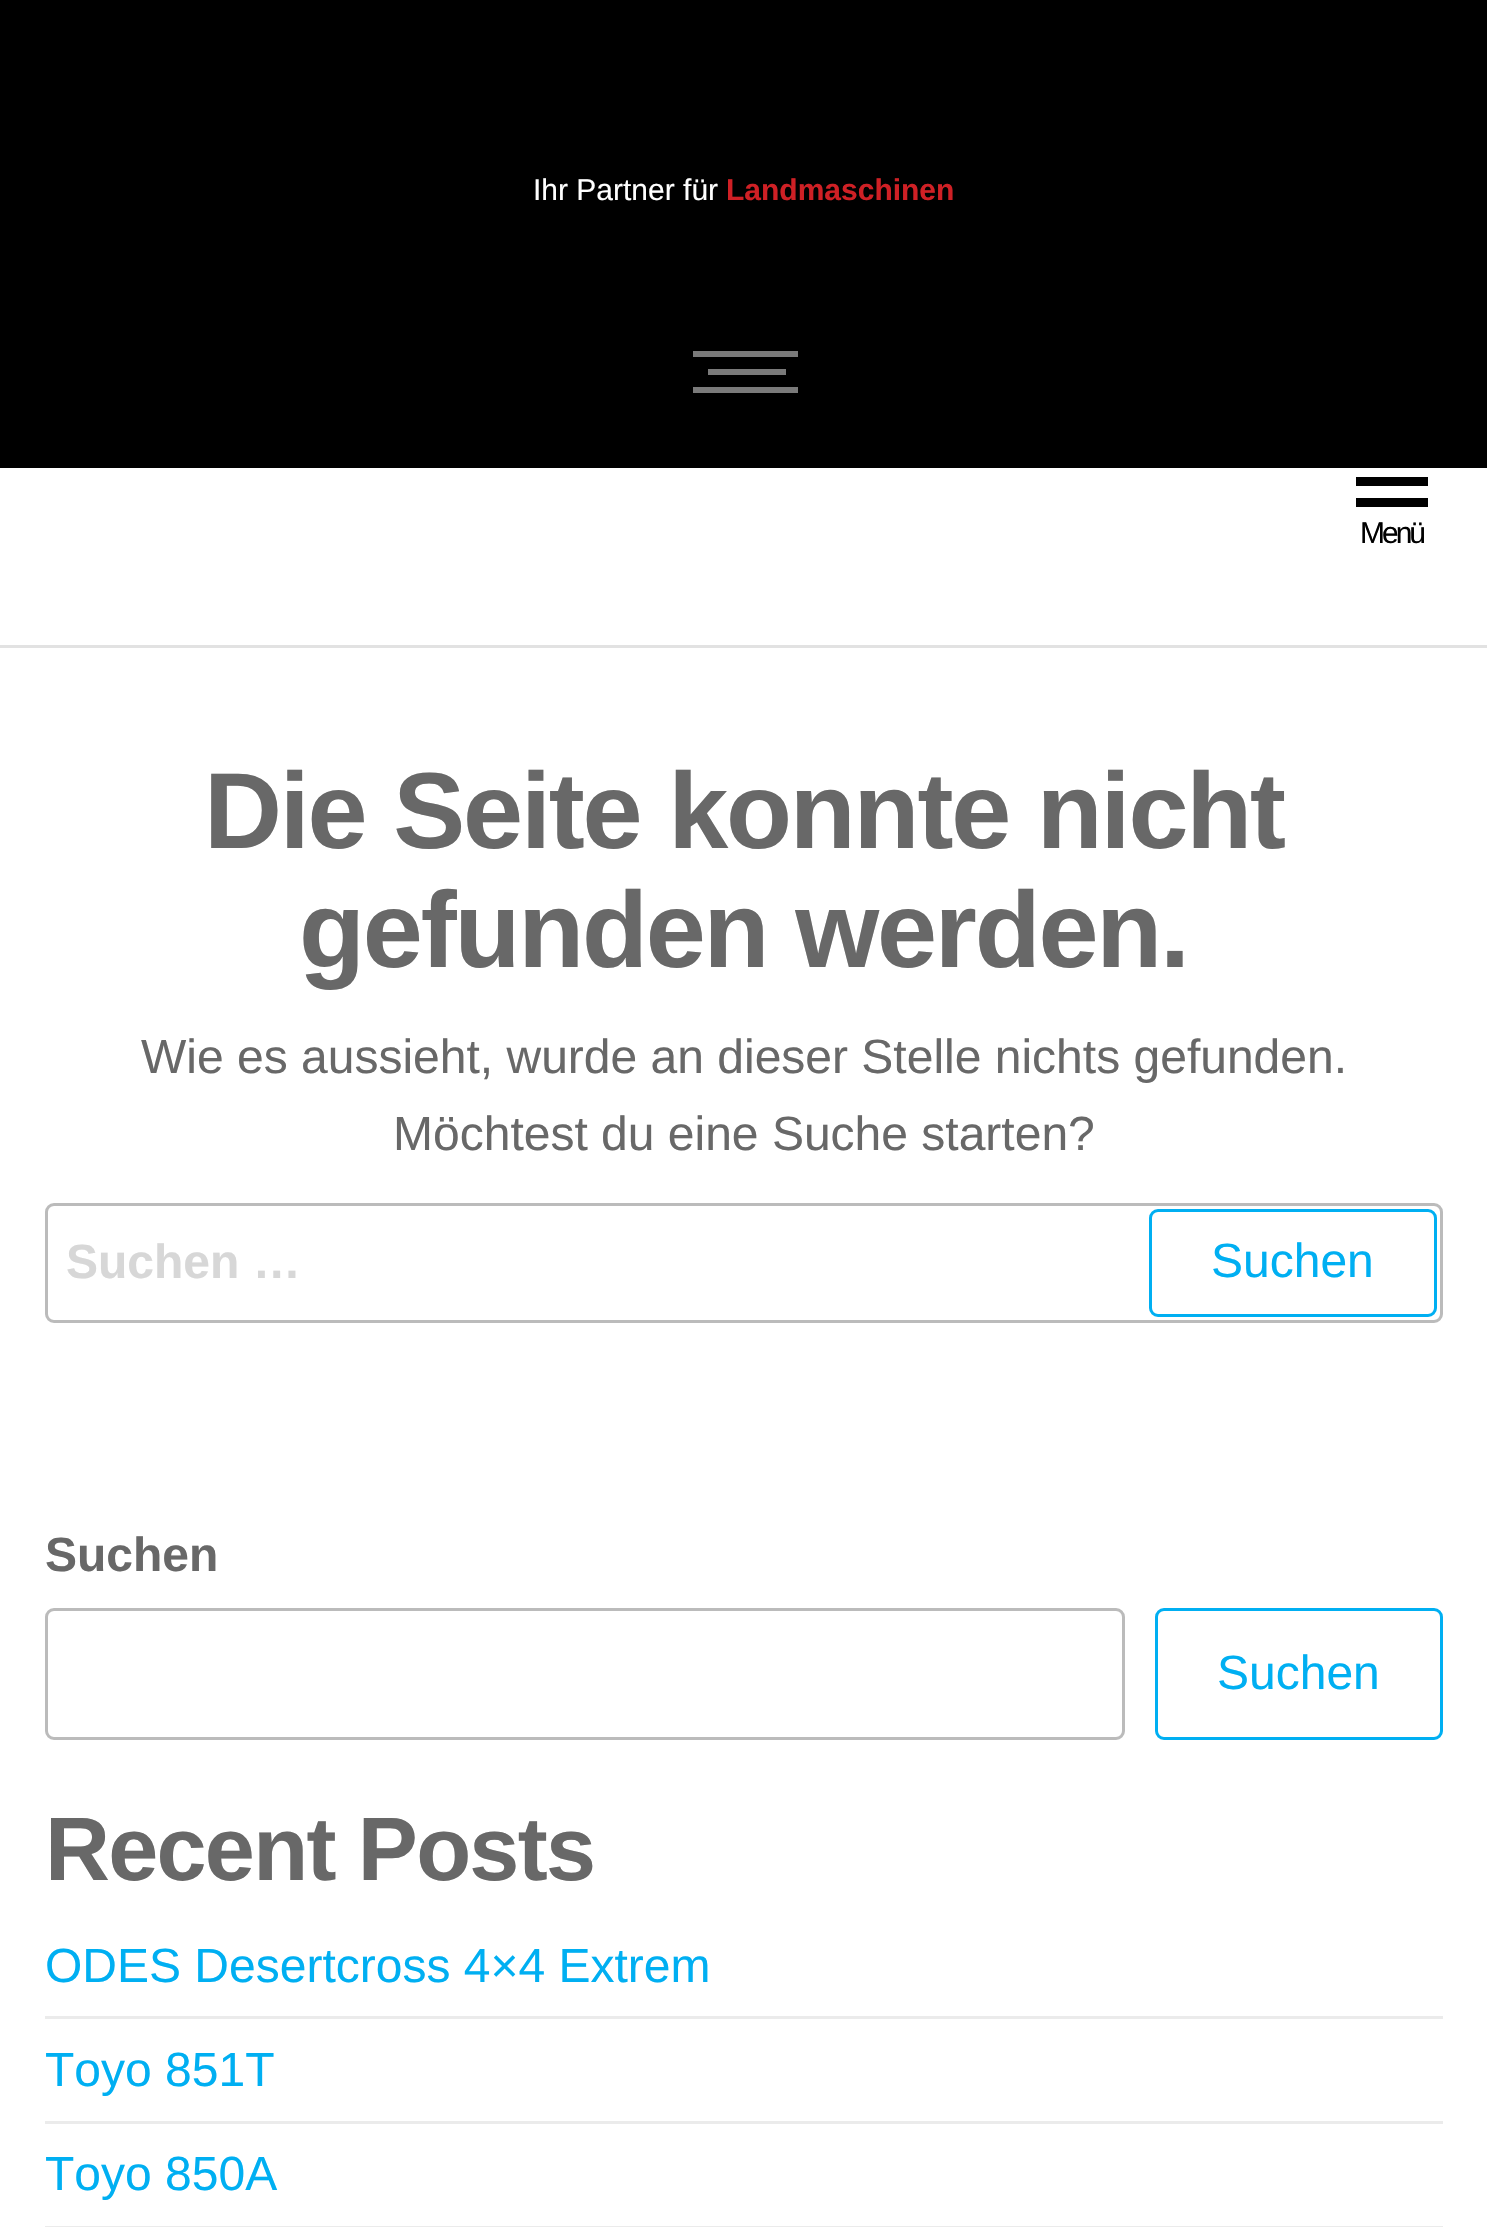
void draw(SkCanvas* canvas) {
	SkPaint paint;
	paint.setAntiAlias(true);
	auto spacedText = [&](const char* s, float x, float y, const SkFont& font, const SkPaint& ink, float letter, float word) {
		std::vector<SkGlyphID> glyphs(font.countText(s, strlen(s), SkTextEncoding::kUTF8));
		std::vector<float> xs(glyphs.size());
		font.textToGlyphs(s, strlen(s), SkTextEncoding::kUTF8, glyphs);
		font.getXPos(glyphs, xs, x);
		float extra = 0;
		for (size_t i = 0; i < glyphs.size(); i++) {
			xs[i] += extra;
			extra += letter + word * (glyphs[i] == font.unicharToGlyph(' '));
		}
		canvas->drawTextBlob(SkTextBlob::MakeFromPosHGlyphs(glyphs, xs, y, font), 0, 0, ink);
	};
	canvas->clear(0xffffffff);
	paint.setColor(0xff000000);
	canvas->drawRect(SkRect::MakeXYWH(0, 0, 1487, 468), paint);
	SkFont f1(fontMgr->matchFamilyStyle("Liberation Sans", SkFontStyle::Normal()), 30);
	f1.setSubpixel(true);
	paint.setColor(0xffffffff);
	canvas->drawString("Ihr Partner für", 533, 200, f1, paint);
	SkFont f2(fontMgr->matchFamilyStyle("Liberation Sans", SkFontStyle::Bold()), 30);
	f2.setSubpixel(true);
	paint.setColor(0xffcf2025);
	canvas->drawString("Landmaschinen", 726, 200, f2, paint);
	paint.setColor(0xff7a7a7a);
	canvas->drawRect(SkRect::MakeXYWH(693, 351, 105, 6), paint);
	canvas->drawRect(SkRect::MakeXYWH(708, 369, 78, 6), paint);
	canvas->drawRect(SkRect::MakeXYWH(693, 387, 105, 6), paint);
	paint.setColor(0xffe2e2e2);
	canvas->drawRect(SkRect::MakeXYWH(0, 645, 1487, 3), paint);
	paint.setColor(0xff000000);
	canvas->drawRect(SkRect::MakeXYWH(1356, 477, 72, 9), paint);
	canvas->drawRect(SkRect::MakeXYWH(1356, 498, 72, 9), paint);
	spacedText("Menü", 1360, 543, f1, paint, -3, 0);
	SkFont f3(fontMgr->matchFamilyStyle("Liberation Sans", SkFontStyle::Bold()), 108);
	f3.setSubpixel(true);
	paint.setColor(0xff686868);
	spacedText("Die Seite konnte nicht", 204, 848, f3, paint, -2.2, 0);
	spacedText("gefunden werden.", 299, 967, f3, paint, -2.2, 0);
	SkFont f4(fontMgr->matchFamilyStyle("Liberation Sans", SkFontStyle::Normal()), 48);
	f4.setSubpixel(true);
	canvas->drawString("Wie es aussieht, wurde an dieser Stelle nichts gefunden.", 141, 1073, f4, paint);
	canvas->drawString("Möchtest du eine Suche starten?", 393, 1150, f4, paint);
	paint.setStroke(true);
	paint.setStrokeWidth(3);
	paint.setColor(0xffbbbbbb);
	canvas->drawRoundRect(SkRect::MakeXYWH(46.5, 1204.5, 1395, 117), 7.5, 7.5, paint);
	SkFont f5(fontMgr->matchFamilyStyle("Liberation Sans", SkFontStyle::Bold()), 48);
	f5.setSubpixel(true);
	paint.setStroke(false);
	paint.setColor(0xffd7d7d7);
	canvas->drawString("Suchen …", 66, 1278, f5, paint);
	paint.setStroke(true);
	paint.setColor(0xff00aff2);
	canvas->drawRoundRect(SkRect::MakeXYWH(1150.5, 1210.5, 285, 105), 7.5, 7.5, paint);
	paint.setStroke(false);
	canvas->drawString("Suchen", 1211, 1277, f4, paint);
	paint.setColor(0xff686868);
	canvas->drawString("Suchen", 45, 1571, f5, paint);
	paint.setStroke(true);
	paint.setColor(0xffbbbbbb);
	canvas->drawRoundRect(SkRect::MakeXYWH(46.5, 1609.5, 1077, 129), 7.5, 7.5, paint);
	paint.setColor(0xff00aff2);
	canvas->drawRoundRect(SkRect::MakeXYWH(1156.5, 1609.5, 285, 129), 7.5, 7.5, paint);
	paint.setStroke(false);
	canvas->drawString("Suchen", 1217, 1689, f4, paint);
	SkFont f6(fontMgr->matchFamilyStyle("Liberation Sans", SkFontStyle::Bold()), 90);
	f6.setSubpixel(true);
	paint.setColor(0xff686868);
	spacedText("Recent Posts", 45, 1880, f6, paint, -1.75, 0);
	paint.setColor(0xffebebeb);
	canvas->drawRect(SkRect::MakeXYWH(45, 2016, 1398, 3), paint);
	paint.setColor(0xff00aff2);
	canvas->drawString("ODES Desertcross 4×4 Extrem", 45, 1982, f4, paint);
	paint.setColor(0xffebebeb);
	canvas->drawRect(SkRect::MakeXYWH(45, 2121, 1398, 3), paint);
	paint.setColor(0xff00aff2);
	canvas->drawString("Toyo 851T", 45, 2086, f4, paint);
	paint.setColor(0xffebebeb);
	canvas->drawRect(SkRect::MakeXYWH(45, 2226, 1398, 1), paint);
	paint.setColor(0xff00aff2);
	canvas->drawString("Toyo 850A", 45, 2190, f4, paint);
}
